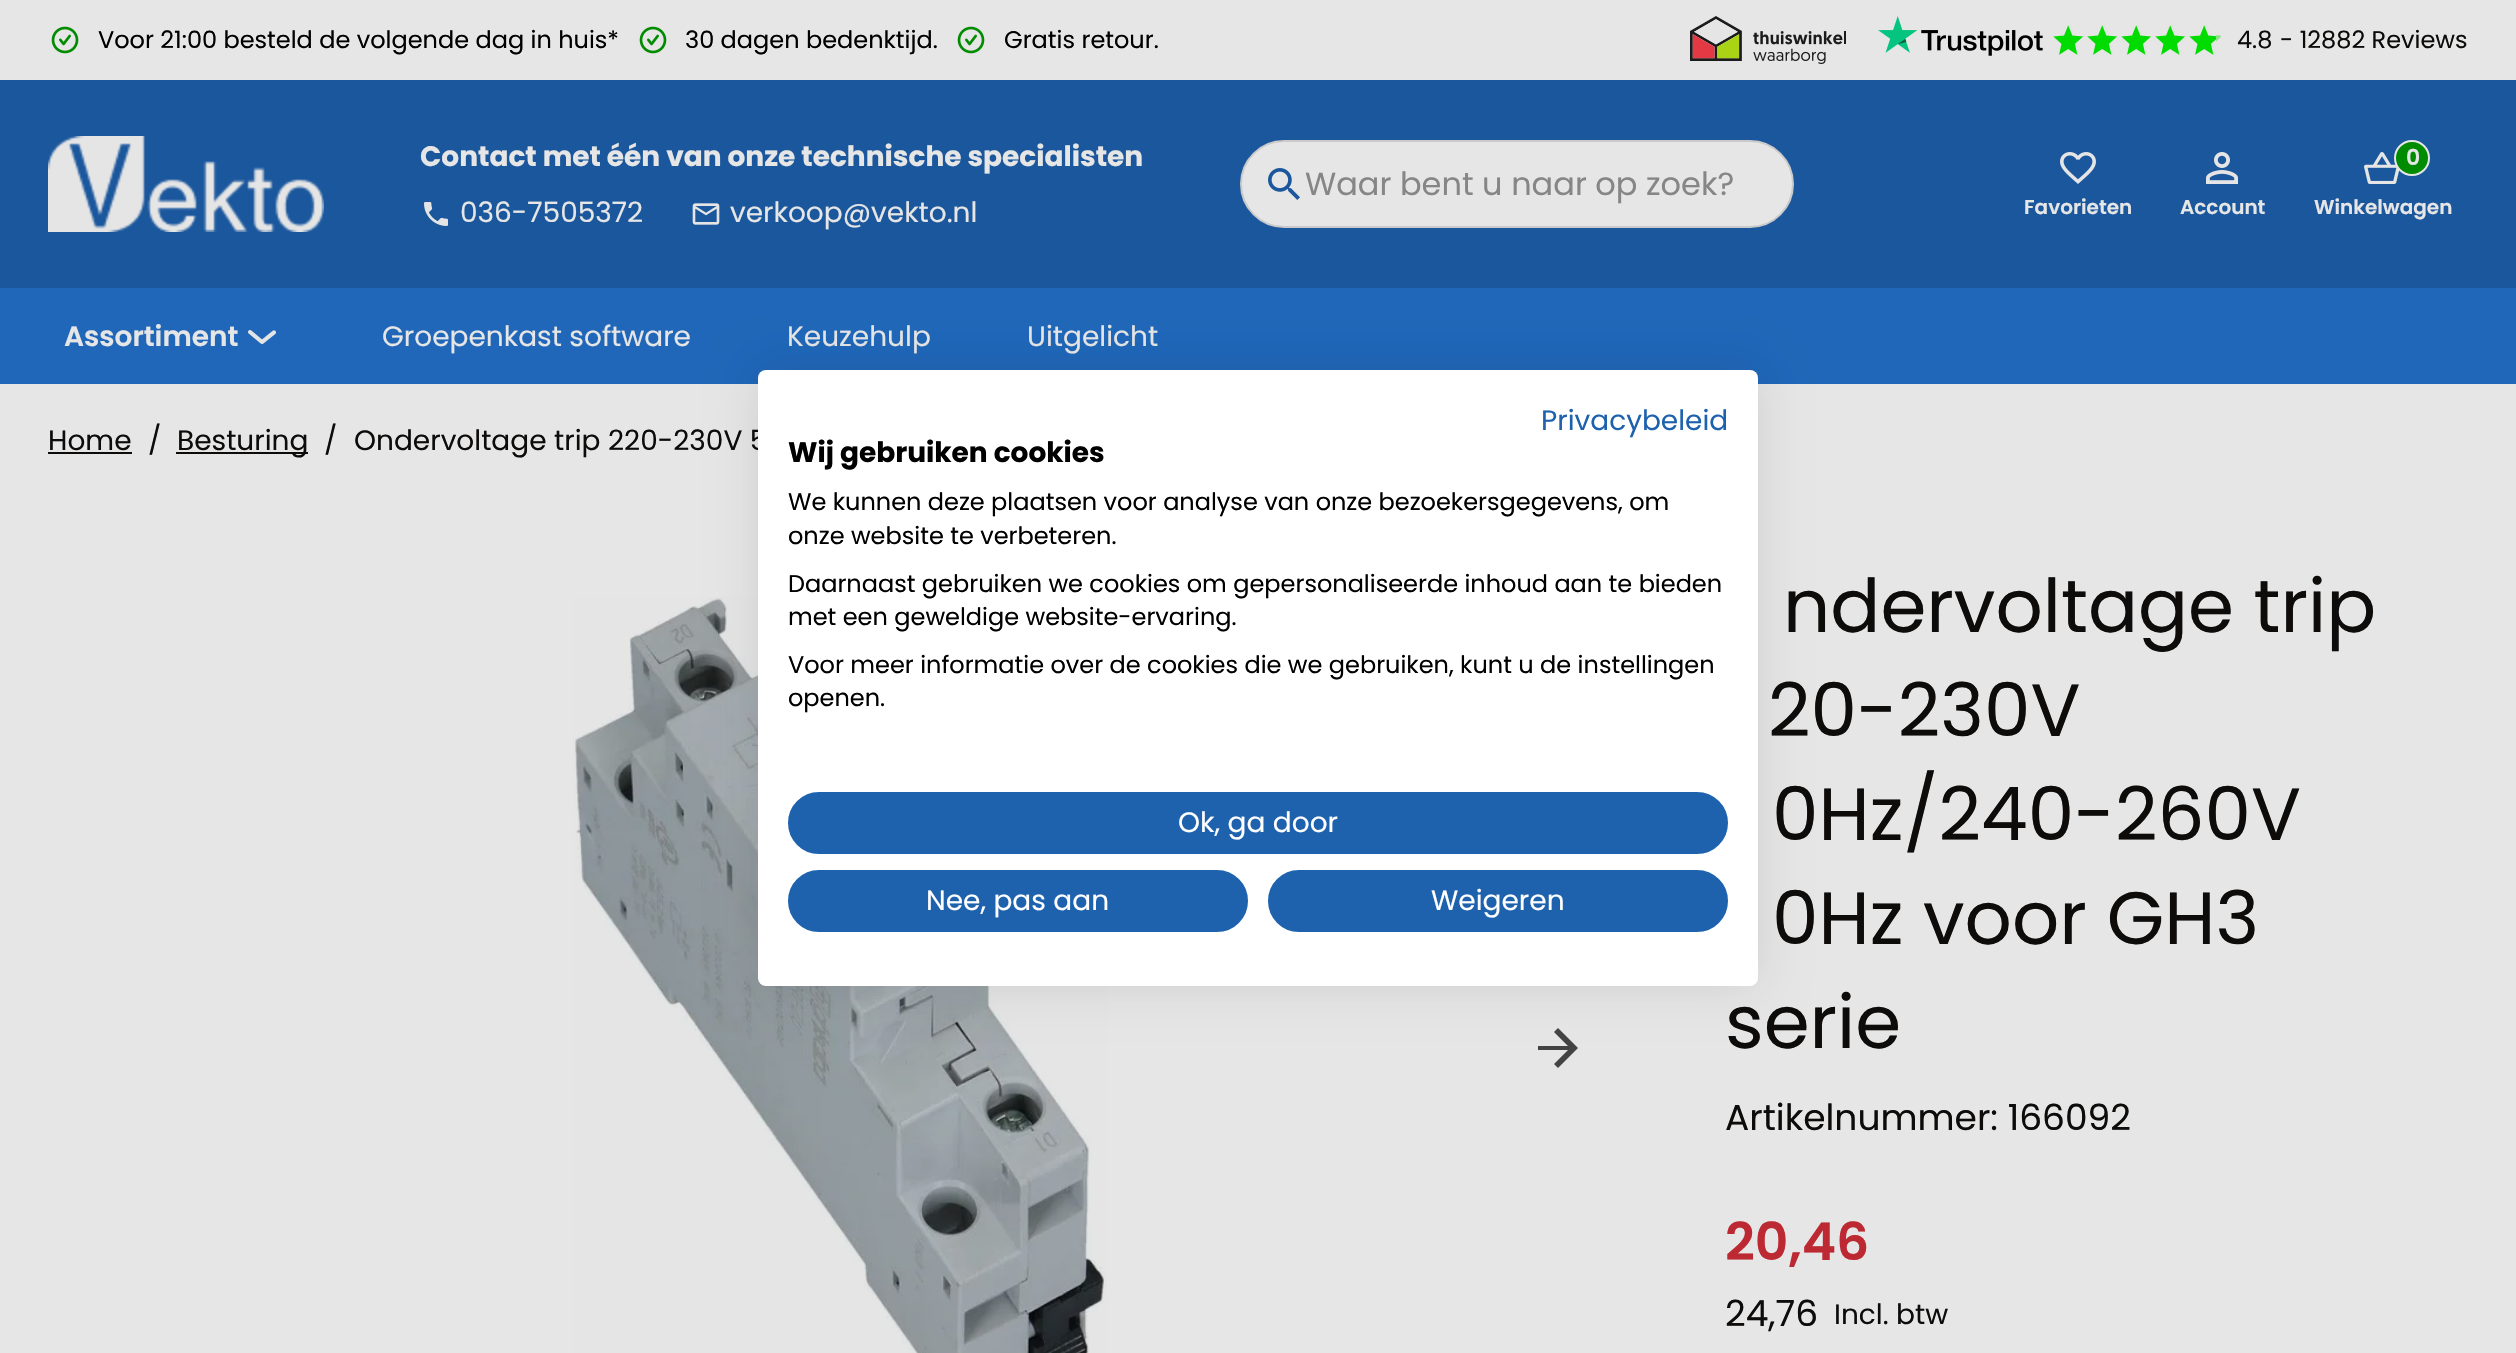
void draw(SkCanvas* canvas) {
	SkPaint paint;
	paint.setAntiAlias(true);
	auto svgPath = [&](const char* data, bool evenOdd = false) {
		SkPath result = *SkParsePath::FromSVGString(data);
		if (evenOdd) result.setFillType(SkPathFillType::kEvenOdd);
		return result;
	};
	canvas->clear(0xffe6e6e6);
	canvas->drawImageRect(SkImages::DeferredFromEncodedData(SkData::MakeFromFileName("img1.png")), SkRect::MakeXYWH(51, 26, 28, 28), SkSamplingOptions());
	SkFont f1(fontMgr->matchFamilyStyle("Poppins", SkFontStyle::Normal()), 24);
	f1.setSubpixel(true);
	paint.setColor(0xff000000);
	canvas->drawString("Voor 21:00 besteld de volgende dag in huis*", 98, 48, f1, paint);
	canvas->drawImageRect(SkImages::DeferredFromEncodedData(SkData::MakeFromFileName("img1.png")), SkRect::MakeXYWH(639, 26, 28, 28), SkSamplingOptions());
	canvas->drawString("30 dagen bedenktijd.", 685, 48, f1, paint);
	canvas->drawImageRect(SkImages::DeferredFromEncodedData(SkData::MakeFromFileName("img1.png")), SkRect::MakeXYWH(957, 26, 28, 28), SkSamplingOptions());
	canvas->drawString("Gratis retour.", 1004, 48, f1, paint);
	canvas->drawImageRect(SkImages::DeferredFromEncodedData(SkData::MakeFromFileName("img2.png")), SkRect::MakeXYWH(1690, 16, 156, 48), SkSamplingOptions());
	canvas->drawImageRect(SkImages::DeferredFromEncodedData(SkData::MakeFromFileName("img3.png")), SkRect::MakeXYWH(1878, 16, 165, 40), SkSamplingOptions());
	canvas->drawImageRect(SkImages::DeferredFromEncodedData(SkData::MakeFromFileName("img6.png")), SkRect::MakeXYWH(2061, 24, 24, 32), SkSamplingOptions());
	canvas->drawImageRect(SkImages::DeferredFromEncodedData(SkData::MakeFromFileName("img4.png")), SkRect::MakeXYWH(2053, 24, 32, 32), SkSamplingOptions());
	canvas->drawImageRect(SkImages::DeferredFromEncodedData(SkData::MakeFromFileName("img6.png")), SkRect::MakeXYWH(2095, 24, 24, 32), SkSamplingOptions());
	canvas->drawImageRect(SkImages::DeferredFromEncodedData(SkData::MakeFromFileName("img4.png")), SkRect::MakeXYWH(2087, 24, 32, 32), SkSamplingOptions());
	canvas->drawImageRect(SkImages::DeferredFromEncodedData(SkData::MakeFromFileName("img6.png")), SkRect::MakeXYWH(2129, 24, 24, 32), SkSamplingOptions());
	canvas->drawImageRect(SkImages::DeferredFromEncodedData(SkData::MakeFromFileName("img4.png")), SkRect::MakeXYWH(2121, 24, 32, 32), SkSamplingOptions());
	canvas->drawImageRect(SkImages::DeferredFromEncodedData(SkData::MakeFromFileName("img6.png")), SkRect::MakeXYWH(2163, 24, 24, 32), SkSamplingOptions());
	canvas->drawImageRect(SkImages::DeferredFromEncodedData(SkData::MakeFromFileName("img4.png")), SkRect::MakeXYWH(2155, 24, 32, 32), SkSamplingOptions());
	canvas->drawImageRect(SkImages::DeferredFromEncodedData(SkData::MakeFromFileName("img6.png")), SkRect::MakeXYWH(2197, 24, 24, 32), SkSamplingOptions());
	canvas->drawImageRect(SkImages::DeferredFromEncodedData(SkData::MakeFromFileName("img5.png")), SkRect::MakeXYWH(2189, 24, 27, 32), SkSamplingOptions());
	paint.setColor(0xff0d0c0b);
	canvas->drawString("4.8", 2237, 48, f1, paint);
	canvas->drawString("- 12882 Reviews", 2280, 48, f1, paint);
	paint.setColor(0xff1b579d);
	canvas->drawRect(SkRect::MakeXYWH(0, 80, 2516, 208), paint);
	canvas->drawImageRect(SkImages::DeferredFromEncodedData(SkData::MakeFromFileName("img7.png")), SkRect::MakeXYWH(48, 136, 276, 96), SkSamplingOptions());
	SkFont f2(fontMgr->matchFamilyStyle("Poppins", SkFontStyle::Bold()), 28);
	f2.setSubpixel(true);
	paint.setColor(0xffe6e6e6);
	canvas->drawString("Contact met één van onze technische specialisten", 420, 166, f2, paint);
	canvas->drawImageRect(SkImages::DeferredFromEncodedData(SkData::MakeFromFileName("img8.png")), SkRect::MakeXYWH(424, 202, 24, 24), SkSamplingOptions());
	SkFont f3(fontMgr->matchFamilyStyle("Poppins", SkFontStyle::Normal()), 28);
	f3.setSubpixel(true);
	canvas->drawString("036-7505372", 460, 222, f3, paint);
	canvas->drawImageRect(SkImages::DeferredFromEncodedData(SkData::MakeFromFileName("img9.png")), SkRect::MakeXYWH(692, 203, 28, 22), SkSamplingOptions());
	canvas->drawString("verkoop@vekto.nl", 730, 222, f3, paint);
	canvas->drawRoundRect(SkRect::MakeXYWH(1241, 141, 552, 86), 43, 43, paint);
	paint.setStroke(true);
	paint.setStrokeWidth(2);
	paint.setColor(0xffcacaca);
	canvas->drawRoundRect(SkRect::MakeXYWH(1241, 141, 552, 86), 43, 43, paint);
	canvas->drawImageRect(SkImages::DeferredFromEncodedData(SkData::MakeFromFileName("img10.png")), SkRect::MakeXYWH(1268, 168, 32, 32), SkSamplingOptions());
	SkFont f4(fontMgr->matchFamilyStyle("Poppins", SkFontStyle::Normal()), 32);
	f4.setSubpixel(true);
	paint.setStroke(false);
	paint.setColor(0xff868686);
	canvas->drawString("Waar bent u naar op zoek?", 1305, 195, f4, paint);
	canvas->drawImageRect(SkImages::DeferredFromEncodedData(SkData::MakeFromFileName("img11.png")), SkRect::MakeXYWH(2060, 152, 36, 32), SkSamplingOptions());
	SkFont f5(fontMgr->matchFamilyStyle("Poppins", SkFontStyle(600, SkFontStyle::kNormal_Width, SkFontStyle::kUpright_Slant)), 20);
	f5.setSubpixel(true);
	paint.setColor(0xffe6e6e6);
	canvas->drawString("Favorieten", 2024, 214, f5, paint);
	canvas->drawImageRect(SkImages::DeferredFromEncodedData(SkData::MakeFromFileName("img12.png")), SkRect::MakeXYWH(2206, 152, 32, 32), SkSamplingOptions());
	canvas->drawString("Account", 2180, 214, f5, paint);
	canvas->drawImageRect(SkImages::DeferredFromEncodedData(SkData::MakeFromFileName("img13.png")), SkRect::MakeXYWH(2364, 152, 36, 32), SkSamplingOptions());
	paint.setColor(0xff008c00);
	canvas->drawCircle(2412, 158, 17, paint);
	paint.setStroke(true);
	paint.setColor(0xffe6e6e6);
	canvas->drawCircle(2412, 158, 17, paint);
	SkFont f6(fontMgr->matchFamilyStyle("Poppins", SkFontStyle(600, SkFontStyle::kNormal_Width, SkFontStyle::kUpright_Slant)), 22);
	f6.setSubpixel(true);
	paint.setStroke(false);
	canvas->drawString("0", 2406, 165, f6, paint);
	canvas->drawString("Winkelwagen", 2314, 214, f5, paint);
	paint.setColor(0xff2067b9);
	canvas->drawRect(SkRect::MakeXYWH(0, 288, 2516, 96), paint);
	SkFont f7(fontMgr->matchFamilyStyle("Poppins", SkFontStyle(600, SkFontStyle::kNormal_Width, SkFontStyle::kUpright_Slant)), 28);
	f7.setSubpixel(true);
	paint.setColor(0xffe6e6e6);
	canvas->drawString("Assortiment", 64, 346, f7, paint);
	canvas->drawImageRect(SkImages::DeferredFromEncodedData(SkData::MakeFromFileName("img14.png")), SkRect::MakeXYWH(248, 330, 28, 14), SkSamplingOptions());
	canvas->drawString("Groepenkast software", 382, 346, f3, paint);
	canvas->drawString("Keuzehulp", 787, 346, f3, paint);
	canvas->drawString("Uitgelicht", 1027, 346, f3, paint);
	paint.setColor(0xff0d0c0b);
	canvas->drawString("Home", 48, 450, f3, paint);
	canvas->drawRect(SkRect::MakeXYWH(48, 452, 84, 2), paint);
	canvas->drawString("/", 148, 450, f3, paint);
	canvas->drawRect(SkRect::MakeXYWH(176, 452, 132, 2), paint);
	canvas->drawString("Besturing", 177, 450, f3, paint);
	canvas->drawString("/", 324, 450, f3, paint);
	canvas->drawString("Ondervoltage trip 220-230V 5", 354, 450, f3, paint);
	canvas->drawImageRect(SkImages::DeferredFromEncodedData(SkData::MakeFromFileName("img15.png")), SkRect::MakeXYWH(573, 597, 534, 756), SkSamplingOptions());
	paint.setColor(0xff434343);
	canvas->drawPath(svgPath("M1558 1028L1554 1032L1568 1046H1538V1050H1568L1554 1064L1558 1068L1578 1048Z"), paint);
	SkFont f8(fontMgr->matchFamilyStyle("Poppins", SkFontStyle::Normal()), 74);
	f8.setSubpixel(true);
	paint.setColor(0xff0d0c0b);
	canvas->drawString("ndervoltage trip", 1783, 632, f8, paint);
	canvas->drawString("20-230V", 1768, 736, f8, paint);
	canvas->drawString("0Hz/240-260V", 1772, 840, f8, paint);
	canvas->drawString("0Hz voor GH3", 1772, 944, f8, paint);
	canvas->drawString("serie", 1725, 1048, f8, paint);
	SkFont f9(fontMgr->matchFamilyStyle("Poppins", SkFontStyle::Normal()), 36);
	f9.setSubpixel(true);
	canvas->drawString("Artikelnummer: 166092", 1725, 1130, f9, paint);
	SkFont f10(fontMgr->matchFamilyStyle("Poppins", SkFontStyle(600, SkFontStyle::kNormal_Width, SkFontStyle::kUpright_Slant)), 52);
	f10.setSubpixel(true);
	paint.setColor(0xffbc2932);
	canvas->drawString("20,46", 1725, 1260, f10, paint);
	paint.setColor(0xff0d0c0b);
	canvas->drawString("24,76", 1725, 1326, f9, paint);
	canvas->drawString("Incl. btw", 1834, 1324, f3, paint);
	paint.setColor(0x1a000000);
	paint.setMaskFilter(SkMaskFilter::MakeBlur(kNormal_SkBlurStyle, 24));
	canvas->drawRoundRect(SkRect::MakeXYWH(758, 370, 1000, 616), 8, 8, paint);
	paint.setMaskFilter(nullptr);
	paint.setColor(0xffffffff);
	canvas->drawRoundRect(SkRect::MakeXYWH(758, 370, 1000, 616), 8, 8, paint);
	paint.setColor(0xff1e62ae);
	canvas->drawString("Privacybeleid", 1541, 430, f3, paint);
	paint.setColor(0xff000000);
	canvas->drawString("Wij gebruiken cookies", 788, 462, f2, paint);
	canvas->drawString("We kunnen deze plaatsen voor analyse van onze bezoekersgegevens, om", 788, 510, f1, paint);
	canvas->drawString("onze website te verbeteren.", 788, 544, f1, paint);
	canvas->drawString("Daarnaast gebruiken we cookies om gepersonaliseerde inhoud aan te bieden", 788, 592, f1, paint);
	canvas->drawString("met een geweldige website-ervaring.", 788, 625, f1, paint);
	canvas->drawString("Voor meer informatie over de cookies die we gebruiken, kunt u de instellingen", 788, 673, f1, paint);
	canvas->drawString("openen.", 788, 706, f1, paint);
	paint.setColor(0xff1e62ae);
	canvas->drawRoundRect(SkRect::MakeXYWH(789, 793, 938, 60), 30, 30, paint);
	paint.setStroke(true);
	canvas->drawRoundRect(SkRect::MakeXYWH(789, 793, 938, 60), 30, 30, paint);
	paint.setStroke(false);
	paint.setColor(0xffffffff);
	canvas->drawString("Ok, ga door", 1178, 832, f3, paint);
	paint.setColor(0xff1e62ae);
	canvas->drawRoundRect(SkRect::MakeXYWH(789, 871, 458, 60), 30, 30, paint);
	paint.setStroke(true);
	canvas->drawRoundRect(SkRect::MakeXYWH(789, 871, 458, 60), 30, 30, paint);
	paint.setStroke(false);
	paint.setColor(0xffffffff);
	canvas->drawString("Nee, pas aan", 926, 910, f3, paint);
	paint.setColor(0xff1e62ae);
	canvas->drawRoundRect(SkRect::MakeXYWH(1269, 871, 458, 60), 30, 30, paint);
	paint.setStroke(true);
	canvas->drawRoundRect(SkRect::MakeXYWH(1269, 871, 458, 60), 30, 30, paint);
	paint.setStroke(false);
	paint.setColor(0xffffffff);
	canvas->drawString("Weigeren", 1431, 910, f3, paint);
}
